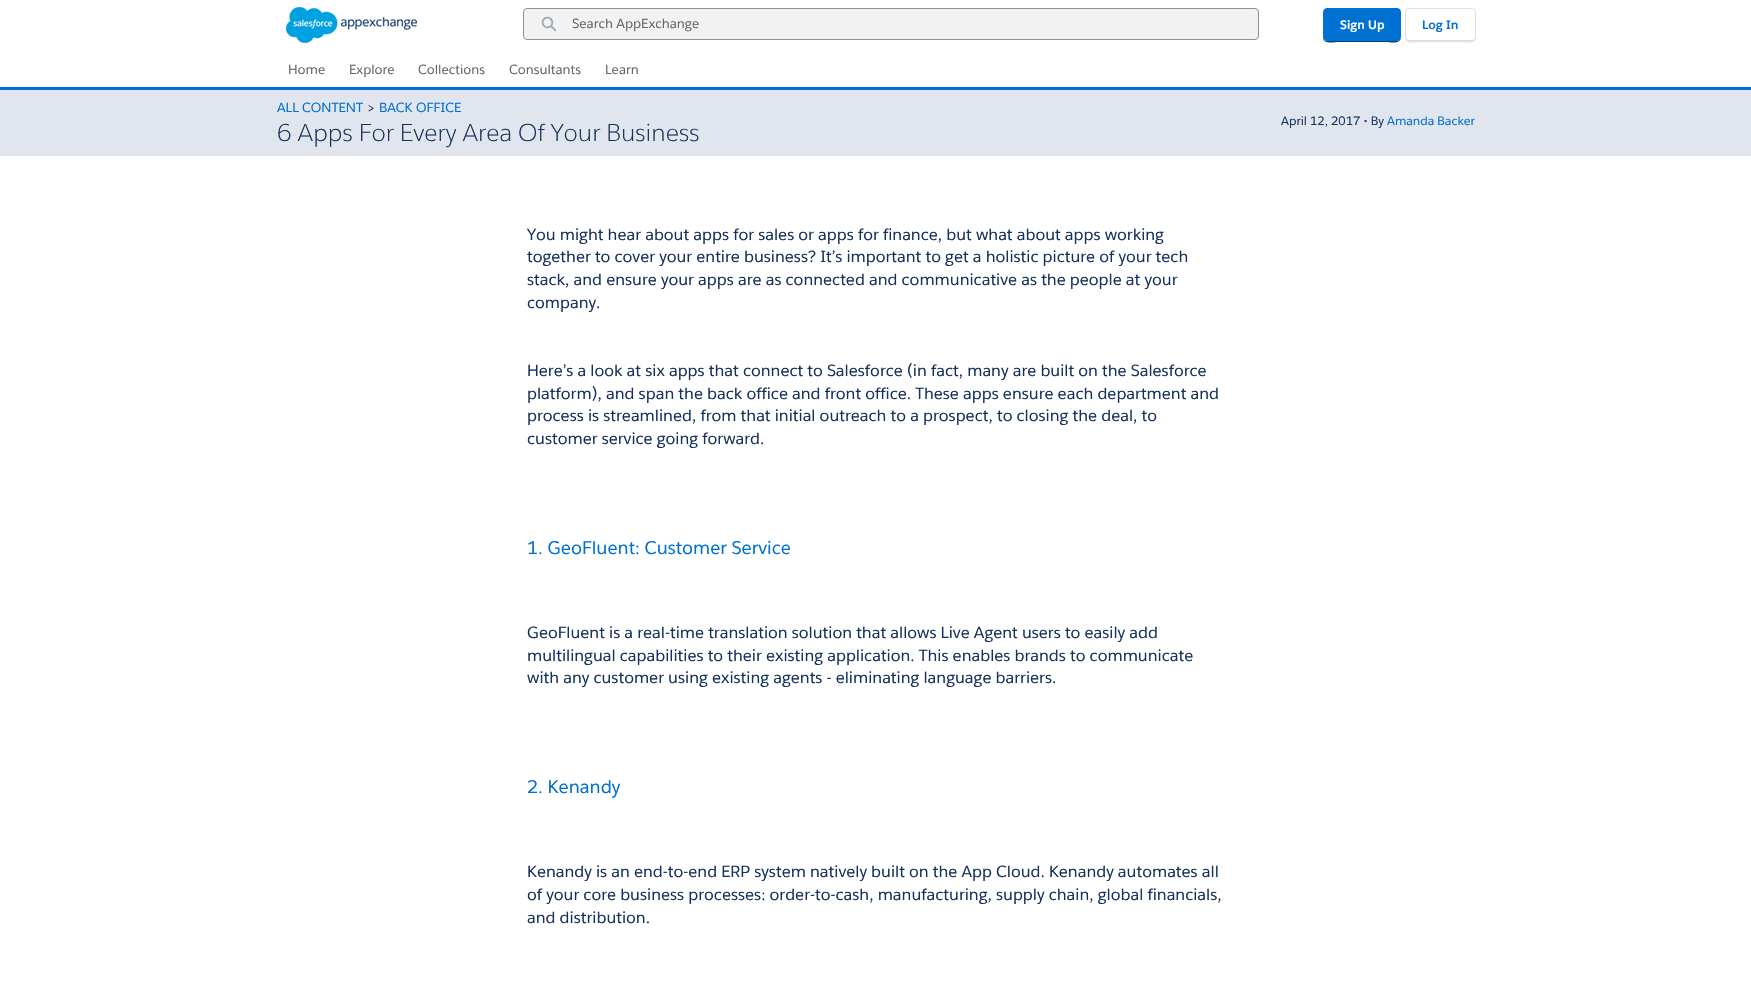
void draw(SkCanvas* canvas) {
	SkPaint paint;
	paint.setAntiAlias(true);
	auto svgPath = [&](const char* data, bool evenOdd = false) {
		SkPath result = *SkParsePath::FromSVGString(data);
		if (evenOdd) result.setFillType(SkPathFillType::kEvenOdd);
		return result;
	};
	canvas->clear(0xffe0e5ee);
	paint.setColor(0xffffffff);
	canvas->drawRect(SkRect::MakeXYWH(0, 0, 1751, 87), paint);
	canvas->drawImageRect(SkImages::DeferredFromEncodedData(SkData::MakeFromFileName("img1.png")), SkRect::MakeXYWH(286, 7, 131, 36), SkSamplingOptions());
	paint.setColor(0xfff2f2f3);
	canvas->drawRoundRect(SkRect::MakeXYWH(523.5, 8.5, 735, 31), 3.5, 3.5, paint);
	paint.setStroke(true);
	paint.setStrokeWidth(1);
	paint.setColor(0xff919297);
	canvas->drawRoundRect(SkRect::MakeXYWH(523.5, 8.5, 735, 31), 3.5, 3.5, paint);
	canvas->drawImageRect(SkImages::DeferredFromEncodedData(SkData::MakeFromFileName("img2.png")), SkRect::MakeXYWH(541, 16, 16, 16), SkSamplingOptions());
	SkFont f1(fontMgr->matchFamilyStyle("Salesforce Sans", SkFontStyle::Normal()), 13);
	f1.setSubpixel(true);
	paint.setStroke(false);
	paint.setColor(0xff666666);
	canvas->drawString("Search AppExchange", 572, 28, f1, paint);
	paint.setColor(0xff004786);
	canvas->drawPath(svgPath("M1323 37C1323 45 1334 42 1339 42H1385C1390 42 1401 45 1401 37C1401 39 1399 41 1397 41H1327C1325 41 1323 39 1323 37Z"), paint);
	paint.setColor(0xff0070d2);
	canvas->drawRoundRect(SkRect::MakeXYWH(1323.5, 8.5, 77, 32), 3.5, 3.5, paint);
	paint.setStroke(true);
	canvas->drawRoundRect(SkRect::MakeXYWH(1323.5, 8.5, 77, 32), 3.5, 3.5, paint);
	SkFont f2(fontMgr->matchFamilyStyle("Salesforce Sans", SkFontStyle::Bold()), 12);
	f2.setSubpixel(true);
	paint.setStroke(false);
	paint.setColor(0xffffffff);
	canvas->drawString("Sign Up", 1340, 29, f2, paint);
	paint.setColor(0xffe2e2e2);
	canvas->drawPath(svgPath("M1405 37C1405 45 1414 42 1420 42H1462C1467 42 1476 45 1476 37C1476 39 1474 41 1472 41H1409C1407 41 1405 39 1405 37Z"), paint);
	paint.setColor(0xffffffff);
	canvas->drawRoundRect(SkRect::MakeXYWH(1405.5, 8.5, 70, 32), 3.5, 3.5, paint);
	paint.setStroke(true);
	paint.setColor(0xffd8dde6);
	canvas->drawRoundRect(SkRect::MakeXYWH(1405.5, 8.5, 70, 32), 3.5, 3.5, paint);
	paint.setStroke(false);
	paint.setColor(0xff0070d2);
	canvas->drawString("Log In", 1422, 29, f2, paint);
	canvas->drawRect(SkRect::MakeXYWH(0, 87, 1751, 3), paint);
	paint.setColor(0xff666666);
	canvas->drawString("Home", 288, 74, f1, paint);
	canvas->drawString("Explore", 349, 74, f1, paint);
	canvas->drawString("Collections", 418, 74, f1, paint);
	canvas->drawString("Consultants", 509, 74, f1, paint);
	canvas->drawString("Learn", 605, 74, f1, paint);
	paint.setColor(0xff0070d2);
	canvas->drawString("ALL CONTENT", 277, 112, f1, paint);
	paint.setColor(0xff16325c);
	canvas->drawString(">", 367, 112, f1, paint);
	paint.setColor(0xff0070d2);
	canvas->drawString("BACK OFFICE", 379, 112, f1, paint);
	SkFont f3(fontMgr->matchFamilyStyle("Salesforce Sans", SkFontStyle(300, SkFontStyle::kNormal_Width, SkFontStyle::kUpright_Slant)), 24);
	f3.setSubpixel(true);
	paint.setColor(0xff16325c);
	canvas->drawString("6 Apps For Every Area Of Your Business", 277, 141, f3, paint);
	SkFont f4(fontMgr->matchFamilyStyle("Salesforce Sans", SkFontStyle::Normal()), 12);
	f4.setSubpixel(true);
	canvas->drawString("April 12, 2017 • By", 1281, 125, f4, paint);
	paint.setColor(0xff0070d2);
	canvas->drawString("Amanda Backer", 1387, 125, f4, paint);
	paint.setColor(0xffffffff);
	canvas->drawRect(SkRect::MakeXYWH(0, 156, 1751, 845), paint);
	SkFont f5(fontMgr->matchFamilyStyle("Salesforce Sans", SkFontStyle::Normal()), 16);
	f5.setSubpixel(true);
	paint.setColor(0xff16325c);
	canvas->drawString("You might hear about apps for sales or apps for finance, but what about apps working", 527, 240, f5, paint);
	canvas->drawString("together to cover your entire business? It’s important to get a holistic picture of your tech", 527, 262, f5, paint);
	canvas->drawString("stack, and ensure your apps are as connected and communicative as the people at your", 527, 285, f5, paint);
	canvas->drawString("company.", 527, 308, f5, paint);
	canvas->drawString("Here’s a look at six apps that connect to Salesforce (in fact, many are built on the Salesforce", 527, 376, f5, paint);
	canvas->drawString("platform), and span the back office and front office. These apps ensure each department and", 527, 399, f5, paint);
	canvas->drawString("process is streamlined, from that initial outreach to a prospect, to closing the deal, to", 527, 421, f5, paint);
	canvas->drawString("customer service going forward.", 527, 444, f5, paint);
	SkFont f6(fontMgr->matchFamilyStyle("Salesforce Sans", SkFontStyle::Normal()), 18);
	f6.setSubpixel(true);
	paint.setColor(0xff0070d2);
	canvas->drawString("1. GeoFluent: Customer Service", 527, 554, f6, paint);
	paint.setColor(0xff16325c);
	canvas->drawString("GeoFluent is a real-time translation solution that allows Live Agent users to easily add", 527, 638, f5, paint);
	canvas->drawString("multilingual capabilities to their existing application. This enables brands to communicate", 527, 661, f5, paint);
	canvas->drawString("with any customer using existing agents - eliminating language barriers.", 527, 683, f5, paint);
	paint.setColor(0xff0070d2);
	canvas->drawString("2. Kenandy", 527, 793, f6, paint);
	paint.setColor(0xff16325c);
	canvas->drawString("Kenandy is an end-to-end ERP system natively built on the App Cloud. Kenandy automates all", 527, 877, f5, paint);
	canvas->drawString("of your core business processes: order-to-cash, manufacturing, supply chain, global financials,", 527, 900, f5, paint);
	canvas->drawString("and distribution.", 527, 923, f5, paint);
}
